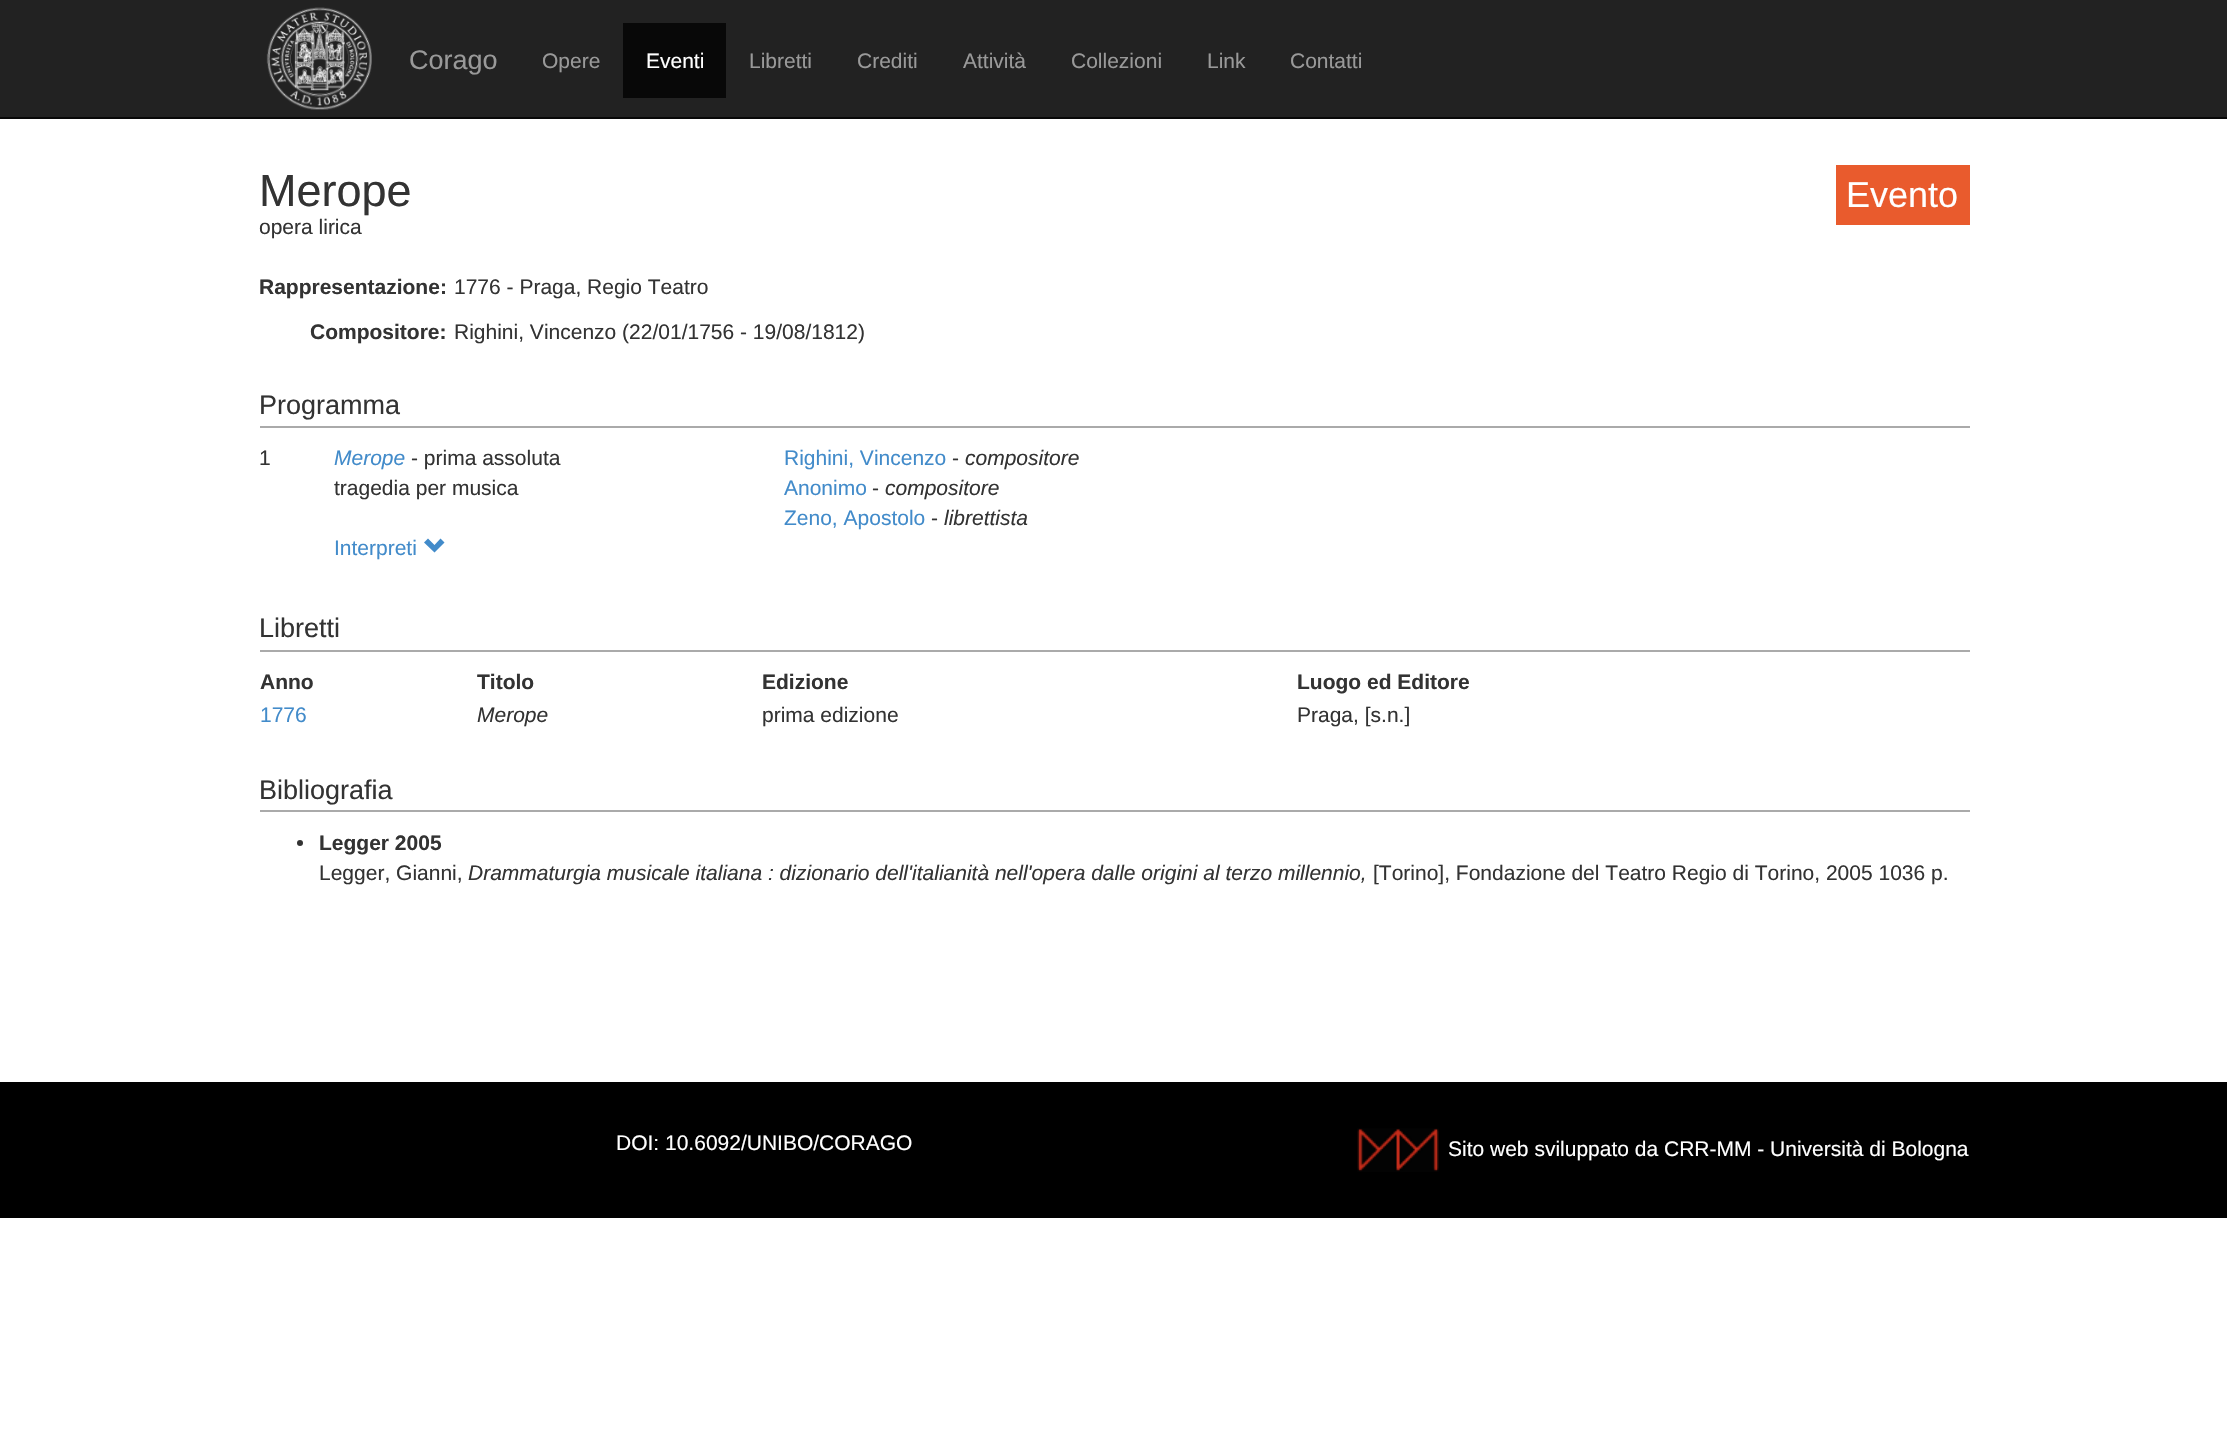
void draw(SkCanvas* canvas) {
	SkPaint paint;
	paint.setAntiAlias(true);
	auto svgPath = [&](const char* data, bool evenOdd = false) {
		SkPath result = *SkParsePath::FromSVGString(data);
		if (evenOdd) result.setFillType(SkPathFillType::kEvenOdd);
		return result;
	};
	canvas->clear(0xffffffff);
	paint.setColor(0xff222222);
	canvas->drawRect(SkRect::MakeXYWH(0, 0, 2227, 117), paint);
	paint.setColor(0xff080808);
	canvas->drawRect(SkRect::MakeXYWH(0, 117, 2227, 2), paint);
	canvas->drawImageRect(SkImages::DeferredFromEncodedData(SkData::MakeFromFileName("img1.png")), SkRect::MakeXYWH(266, 7, 106, 103), SkSamplingOptions());
	SkFont f1(fontMgr->matchFamilyStyle("Liberation Sans", SkFontStyle::Normal()), 27);
	f1.setSubpixel(true);
	paint.setColor(0xff999999);
	canvas->drawString("Corago", 409, 69, f1, paint);
	SkFont f2(fontMgr->matchFamilyStyle("Liberation Sans", SkFontStyle::Normal()), 21);
	f2.setSubpixel(true);
	canvas->drawString("Opere", 542, 68, f2, paint);
	paint.setColor(0xff080808);
	canvas->drawRect(SkRect::MakeXYWH(623, 23, 103, 75), paint);
	paint.setColor(0xffffffff);
	canvas->drawString("Eventi", 646, 68, f2, paint);
	paint.setColor(0xff999999);
	canvas->drawString("Libretti", 749, 68, f2, paint);
	canvas->drawString("Crediti", 857, 68, f2, paint);
	canvas->drawString("Attività", 963, 68, f2, paint);
	canvas->drawString("Collezioni", 1071, 68, f2, paint);
	canvas->drawString("Link", 1207, 68, f2, paint);
	canvas->drawString("Contatti", 1290, 68, f2, paint);
	SkFont f3(fontMgr->matchFamilyStyle("Liberation Sans", SkFontStyle::Normal()), 45);
	f3.setSubpixel(true);
	paint.setColor(0xff333333);
	canvas->drawString("Merope", 259, 206, f3, paint);
	paint.setColor(0xffe95b2d);
	canvas->drawRect(SkRect::MakeXYWH(1836, 165, 134, 60), paint);
	SkFont f4(fontMgr->matchFamilyStyle("Liberation Sans", SkFontStyle::Normal()), 36);
	f4.setSubpixel(true);
	paint.setColor(0xffffffff);
	canvas->drawString("Evento", 1846, 207, f4, paint);
	paint.setColor(0xff333333);
	canvas->drawString("opera lirica", 259, 234, f2, paint);
	SkFont f5(fontMgr->matchFamilyStyle("Liberation Sans", SkFontStyle::Bold()), 21);
	f5.setSubpixel(true);
	canvas->drawString("Rappresentazione:", 259, 294, f5, paint);
	canvas->drawString("1776 - Praga, Regio Teatro", 454, 294, f2, paint);
	canvas->drawString("Compositore:", 310, 339, f5, paint);
	canvas->drawString("Righini, Vincenzo (22/01/1756 - 19/08/1812)", 454, 339, f2, paint);
	paint.setColor(0xffaaaaaa);
	canvas->drawRect(SkRect::MakeXYWH(260, 426, 1710, 2), paint);
	paint.setColor(0xff333333);
	canvas->drawString("Programma", 259, 414, f1, paint);
	canvas->drawString("1", 259, 465, f2, paint);
	SkFont f6(fontMgr->matchFamilyStyle("Liberation Sans", SkFontStyle::Italic()), 21);
	f6.setSubpixel(true);
	paint.setColor(0xff428bca);
	canvas->drawString("Merope", 334, 465, f6, paint);
	paint.setColor(0xff333333);
	canvas->drawString("- prima assoluta", 411, 465, f2, paint);
	canvas->drawString("tragedia per musica", 334, 495, f2, paint);
	paint.setColor(0xff428bca);
	canvas->drawString("Righini, Vincenzo", 784, 465, f2, paint);
	paint.setColor(0xff333333);
	canvas->drawString("-", 952, 465, f2, paint);
	canvas->drawString("compositore", 965, 465, f6, paint);
	paint.setColor(0xff428bca);
	canvas->drawString("Anonimo", 784, 495, f2, paint);
	paint.setColor(0xff333333);
	canvas->drawString("-", 872, 495, f2, paint);
	canvas->drawString("compositore", 885, 495, f6, paint);
	paint.setColor(0xff428bca);
	canvas->drawString("Zeno, Apostolo", 784, 525, f2, paint);
	paint.setColor(0xff333333);
	canvas->drawString("-", 931, 525, f2, paint);
	canvas->drawString("librettista", 944, 525, f6, paint);
	paint.setColor(0xff428bca);
	canvas->drawString("Interpreti", 334, 555, f2, paint);
	canvas->drawPath(svgPath("M424 542.5L434.5 552.5L444.5 542.5L440.5 538.5L434.5 545L428 538.5Z"), paint);
	paint.setColor(0xffaaaaaa);
	canvas->drawRect(SkRect::MakeXYWH(260, 650, 1710, 2), paint);
	paint.setColor(0xff333333);
	canvas->drawString("Libretti", 259, 637, f1, paint);
	canvas->drawString("Anno", 260, 689, f5, paint);
	canvas->drawString("Titolo", 477, 689, f5, paint);
	canvas->drawString("Edizione", 762, 689, f5, paint);
	canvas->drawString("Luogo ed Editore", 1297, 689, f5, paint);
	paint.setColor(0xff428bca);
	canvas->drawString("1776", 260, 722, f2, paint);
	paint.setColor(0xff333333);
	canvas->drawString("Merope", 477, 722, f6, paint);
	canvas->drawString("prima edizione", 762, 722, f2, paint);
	canvas->drawString("Praga, [s.n.]", 1297, 722, f2, paint);
	paint.setColor(0xffaaaaaa);
	canvas->drawRect(SkRect::MakeXYWH(260, 810, 1710, 2), paint);
	paint.setColor(0xff333333);
	canvas->drawString("Bibliografia", 259, 799, f1, paint);
	canvas->drawCircle(300, 843, 3, paint);
	canvas->drawString("Legger 2005", 319, 850, f5, paint);
	canvas->drawString("Legger, Gianni,", 319, 880, f2, paint);
	canvas->drawString("Drammaturgia musicale italiana : dizionario dell'italianità nell'opera dalle origini al terzo millennio,", 468, 880, f6, paint);
	canvas->drawString("[Torino], Fondazione del Teatro Regio di Torino, 2005 1036 p.", 1373, 880, f2, paint);
	paint.setColor(0xff000000);
	canvas->drawRect(SkRect::MakeXYWH(0, 1082, 2227, 136), paint);
	paint.setColor(0xffffffff);
	canvas->drawString("DOI: 10.6092/UNIBO/CORAGO", 616, 1150, f2, paint);
	canvas->drawImageRect(SkImages::DeferredFromEncodedData(SkData::MakeFromFileName("img2.png")), SkRect::MakeXYWH(1357, 1128, 82, 44), SkSamplingOptions());
	canvas->drawString("Sito web sviluppato da CRR-MM - Università di Bologna", 1448, 1156, f2, paint);
}
